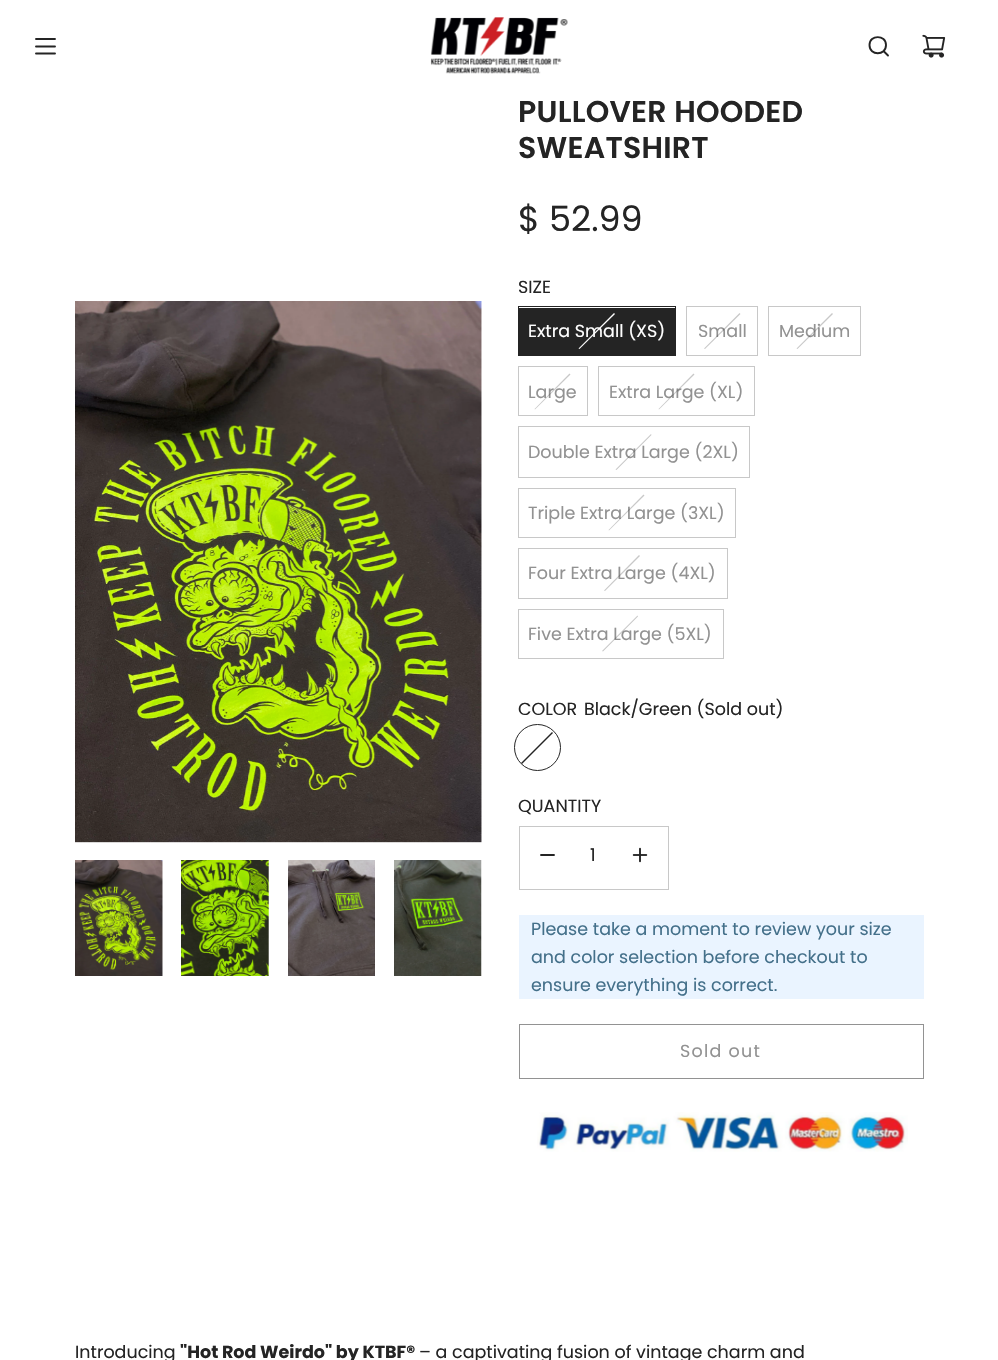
void draw(SkCanvas* canvas) {
	SkPaint paint;
	paint.setAntiAlias(true);
	auto spacedText = [&](const char* s, float x, float y, const SkFont& font, const SkPaint& ink, float letter, float word) {
		std::vector<SkGlyphID> glyphs(font.countText(s, strlen(s), SkTextEncoding::kUTF8));
		std::vector<float> xs(glyphs.size());
		font.textToGlyphs(s, strlen(s), SkTextEncoding::kUTF8, glyphs);
		font.getXPos(glyphs, xs, x);
		float extra = 0;
		for (size_t i = 0; i < glyphs.size(); i++) {
			xs[i] += extra;
			extra += letter + word * (glyphs[i] == font.unicharToGlyph(' '));
		}
		canvas->drawTextBlob(SkTextBlob::MakeFromPosHGlyphs(glyphs, xs, y, font), 0, 0, ink);
	};
	auto svgPath = [&](const char* data, bool evenOdd = false) {
		SkPath result = *SkParsePath::FromSVGString(data);
		if (evenOdd) result.setFillType(SkPathFillType::kEvenOdd);
		return result;
	};
	canvas->clear(0xffffffff);
	paint.setStroke(true);
	paint.setStrokeWidth(1.9);
	paint.setStrokeCap(SkPaint::kRound_Cap);
	paint.setStrokeJoin(SkPaint::kRound_Join);
	paint.setColor(0xff242424);
	canvas->drawPath(svgPath("M36 39H55M36 46.5H55M36 53.5H55"), paint);
	canvas->drawImageRect(SkImages::DeferredFromEncodedData(SkData::MakeFromFileName("img1.png")), SkRect::MakeXYWH(430, 17, 138, 57), SkSamplingOptions());
	canvas->drawPath(svgPath("M884 51.5L888 55.5M869.5 45C869.5 56 886 56 886 45C886 34.5 869.5 34.5 869.5 45Z"), paint);
	canvas->drawImageRect(SkImages::DeferredFromEncodedData(SkData::MakeFromFileName("img2.png")), SkRect::MakeXYWH(922, 34, 24, 24), SkSamplingOptions());
	canvas->drawImageRect(SkImages::DeferredFromEncodedData(SkData::MakeFromFileName("img3.png")), SkRect::MakeXYWH(75, 301, 407, 542), SkSamplingOptions());
	canvas->drawImageRect(SkImages::DeferredFromEncodedData(SkData::MakeFromFileName("img4.png")), SkRect::MakeXYWH(75, 860, 88, 116), SkSamplingOptions());
	canvas->drawImageRect(SkImages::DeferredFromEncodedData(SkData::MakeFromFileName("img5.png")), SkRect::MakeXYWH(181, 860, 88, 116), SkSamplingOptions());
	canvas->drawImageRect(SkImages::DeferredFromEncodedData(SkData::MakeFromFileName("img6.png")), SkRect::MakeXYWH(288, 860, 87, 116), SkSamplingOptions());
	canvas->drawImageRect(SkImages::DeferredFromEncodedData(SkData::MakeFromFileName("img7.png")), SkRect::MakeXYWH(394, 860, 88, 116), SkSamplingOptions());
	SkFont f1(fontMgr->matchFamilyStyle("Poppins", SkFontStyle(600, SkFontStyle::kNormal_Width, SkFontStyle::kUpright_Slant)), 30);
	f1.setSubpixel(true);
	paint.setStroke(false);
	spacedText("PULLOVER HOODED", 518, 122, f1, paint, 0.25, 0);
	spacedText("SWEATSHIRT", 518, 158, f1, paint, 0.25, 0);
	SkFont f2(fontMgr->matchFamilyStyle("Poppins", SkFontStyle::Normal()), 35);
	f2.setSubpixel(true);
	canvas->drawString("$ 52.99", 518, 231, f2, paint);
	SkFont f3(fontMgr->matchFamilyStyle("Poppins", SkFontStyle::Normal()), 17.5);
	f3.setSubpixel(true);
	canvas->drawString("SIZE", 518, 293, f3, paint);
	canvas->drawRect(SkRect::MakeXYWH(519, 308, 156, 47), paint);
	paint.setStroke(true);
	paint.setStrokeWidth(1);
	paint.setStrokeCap(SkPaint::kButt_Cap);
	paint.setStrokeJoin(SkPaint::kMiter_Join);
	canvas->drawRect(SkRect::MakeXYWH(518.5, 306.5, 157, 49), paint);
	paint.setStroke(false);
	paint.setColor(0xffffffff);
	canvas->drawPath(svgPath("M578.5 348.5L614 313L615 314L579.5 349Z"), paint);
	canvas->drawString("Extra Small (XS)", 528, 337, f3, paint);
	paint.setStroke(true);
	paint.setColor(0xffc8c8c8);
	canvas->drawRect(SkRect::MakeXYWH(686.5, 306.5, 71, 49), paint);
	paint.setStroke(false);
	paint.setColor(0xff929292);
	canvas->drawString("Small", 698, 337, f3, paint);
	paint.setColor(0x40242424);
	canvas->drawPath(svgPath("M704 348.5L739.5 313L740.5 314L705 349Z"), paint);
	paint.setStroke(true);
	paint.setColor(0xffc8c8c8);
	canvas->drawRect(SkRect::MakeXYWH(768.5, 306.5, 92, 49), paint);
	paint.setStroke(false);
	paint.setColor(0xff929292);
	canvas->drawString("Medium", 779, 337, f3, paint);
	paint.setColor(0x40242424);
	canvas->drawPath(svgPath("M796.5 348.5L832 313L833 314L797.5 349Z"), paint);
	paint.setStroke(true);
	paint.setColor(0xffc8c8c8);
	canvas->drawRect(SkRect::MakeXYWH(518.5, 366.5, 69, 49), paint);
	paint.setStroke(false);
	paint.setColor(0xff929292);
	canvas->drawString("Large", 528, 398, f3, paint);
	paint.setColor(0x40242424);
	canvas->drawPath(svgPath("M534.5 409L569.5 373.5L570.5 374.5L535 409.5Z"), paint);
	paint.setStroke(true);
	paint.setColor(0xffc8c8c8);
	canvas->drawRect(SkRect::MakeXYWH(598.5, 366.5, 156, 49), paint);
	paint.setStroke(false);
	paint.setColor(0xff929292);
	canvas->drawString("Extra Large (XL)", 609, 398, f3, paint);
	paint.setColor(0x40242424);
	canvas->drawPath(svgPath("M658.5 409L693.5 373.5L694.5 374.5L659 409.5Z"), paint);
	paint.setStroke(true);
	paint.setColor(0xffc8c8c8);
	canvas->drawRect(SkRect::MakeXYWH(518.5, 426.5, 231, 51), paint);
	paint.setStroke(false);
	paint.setColor(0xff929292);
	canvas->drawString("Double Extra Large (2XL)", 528, 458, f3, paint);
	paint.setColor(0x40242424);
	canvas->drawPath(svgPath("M615.5 469.5L651 434L651.5 435L616.5 470Z"), paint);
	paint.setStroke(true);
	paint.setColor(0xffc8c8c8);
	canvas->drawRect(SkRect::MakeXYWH(518.5, 488.5, 217, 49), paint);
	paint.setStroke(false);
	paint.setColor(0xff929292);
	canvas->drawString("Triple Extra Large (3XL)", 528, 519, f3, paint);
	paint.setColor(0x40242424);
	canvas->drawPath(svgPath("M608.5 530L643.5 494.5L644.5 495.5L609 530.5Z"), paint);
	paint.setStroke(true);
	paint.setColor(0xffc8c8c8);
	canvas->drawRect(SkRect::MakeXYWH(518.5, 548.5, 209, 50), paint);
	paint.setStroke(false);
	paint.setColor(0xff929292);
	canvas->drawString("Four Extra Large (4XL)", 528, 579, f3, paint);
	paint.setColor(0x40242424);
	canvas->drawPath(svgPath("M604 590.5L639 555L640 556L605 591Z"), paint);
	paint.setStroke(true);
	paint.setColor(0xffc8c8c8);
	canvas->drawRect(SkRect::MakeXYWH(518.5, 609.5, 205, 49), paint);
	paint.setStroke(false);
	paint.setColor(0xff929292);
	canvas->drawString("Five Extra Large (5XL)", 528, 640, f3, paint);
	paint.setColor(0x40242424);
	canvas->drawPath(svgPath("M602 651L637.5 615.5L638 616.5L603 651.5Z"), paint);
	paint.setColor(0xff242424);
	canvas->drawString("COLOR", 518, 715, f3, paint);
	canvas->drawString("Black/Green (Sold out)", 584, 715, f3, paint);
	paint.setStroke(true);
	canvas->drawCircle(537.5, 747.5, 23, paint);
	paint.setStroke(false);
	canvas->drawPath(svgPath("M521 763L552 732L553 733L522 764Z"), paint);
	canvas->drawString("QUANTITY", 518, 812, f3, paint);
	paint.setStroke(true);
	paint.setColor(0xffc8c8c8);
	canvas->drawRect(SkRect::MakeXYWH(519.5, 826.5, 149, 63), paint);
	paint.setStrokeWidth(1.9);
	paint.setStrokeCap(SkPaint::kRound_Cap);
	paint.setStrokeJoin(SkPaint::kRound_Join);
	paint.setColor(0xff242424);
	canvas->drawPath(svgPath("M541 855H554"), paint);
	paint.setStroke(false);
	canvas->drawString("1", 590, 861, f3, paint);
	canvas->drawImageRect(SkImages::DeferredFromEncodedData(SkData::MakeFromFileName("img8.png")), SkRect::MakeXYWH(632, 847, 16, 16), SkSamplingOptions());
	paint.setColor(0xffeaf4ff);
	canvas->drawRect(SkRect::MakeXYWH(519, 915, 405, 84), paint);
	paint.setColor(0xff44708a);
	canvas->drawString("Please take a moment to review your size", 531, 935, f3, paint);
	canvas->drawString("and color selection before checkout to", 531, 963, f3, paint);
	canvas->drawString("ensure everything is correct.", 531, 991, f3, paint);
	paint.setStroke(true);
	paint.setStrokeWidth(1);
	paint.setStrokeCap(SkPaint::kButt_Cap);
	paint.setStrokeJoin(SkPaint::kMiter_Join);
	paint.setColor(0xff929292);
	canvas->drawRect(SkRect::MakeXYWH(519.5, 1024.5, 404, 54), paint);
	paint.setStroke(false);
	spacedText("Sold out", 680, 1057, f3, paint, 1.25, 0);
	canvas->drawImageRect(SkImages::DeferredFromEncodedData(SkData::MakeFromFileName("img9.png")), SkRect::MakeXYWH(537, 1112, 371, 40), SkSamplingOptions());
	paint.setColor(0xff242424);
	canvas->drawString("Introducing", 75, 1358, f3, paint);
	SkFont f4(fontMgr->matchFamilyStyle("Poppins", SkFontStyle::Bold()), 17.5);
	f4.setSubpixel(true);
	canvas->drawString("\"Hot Rod Weirdo\" by KTBF®", 180, 1358, f4, paint);
	canvas->drawString("– a captivating fusion of vintage charm and", 419, 1358, f3, paint);
}
